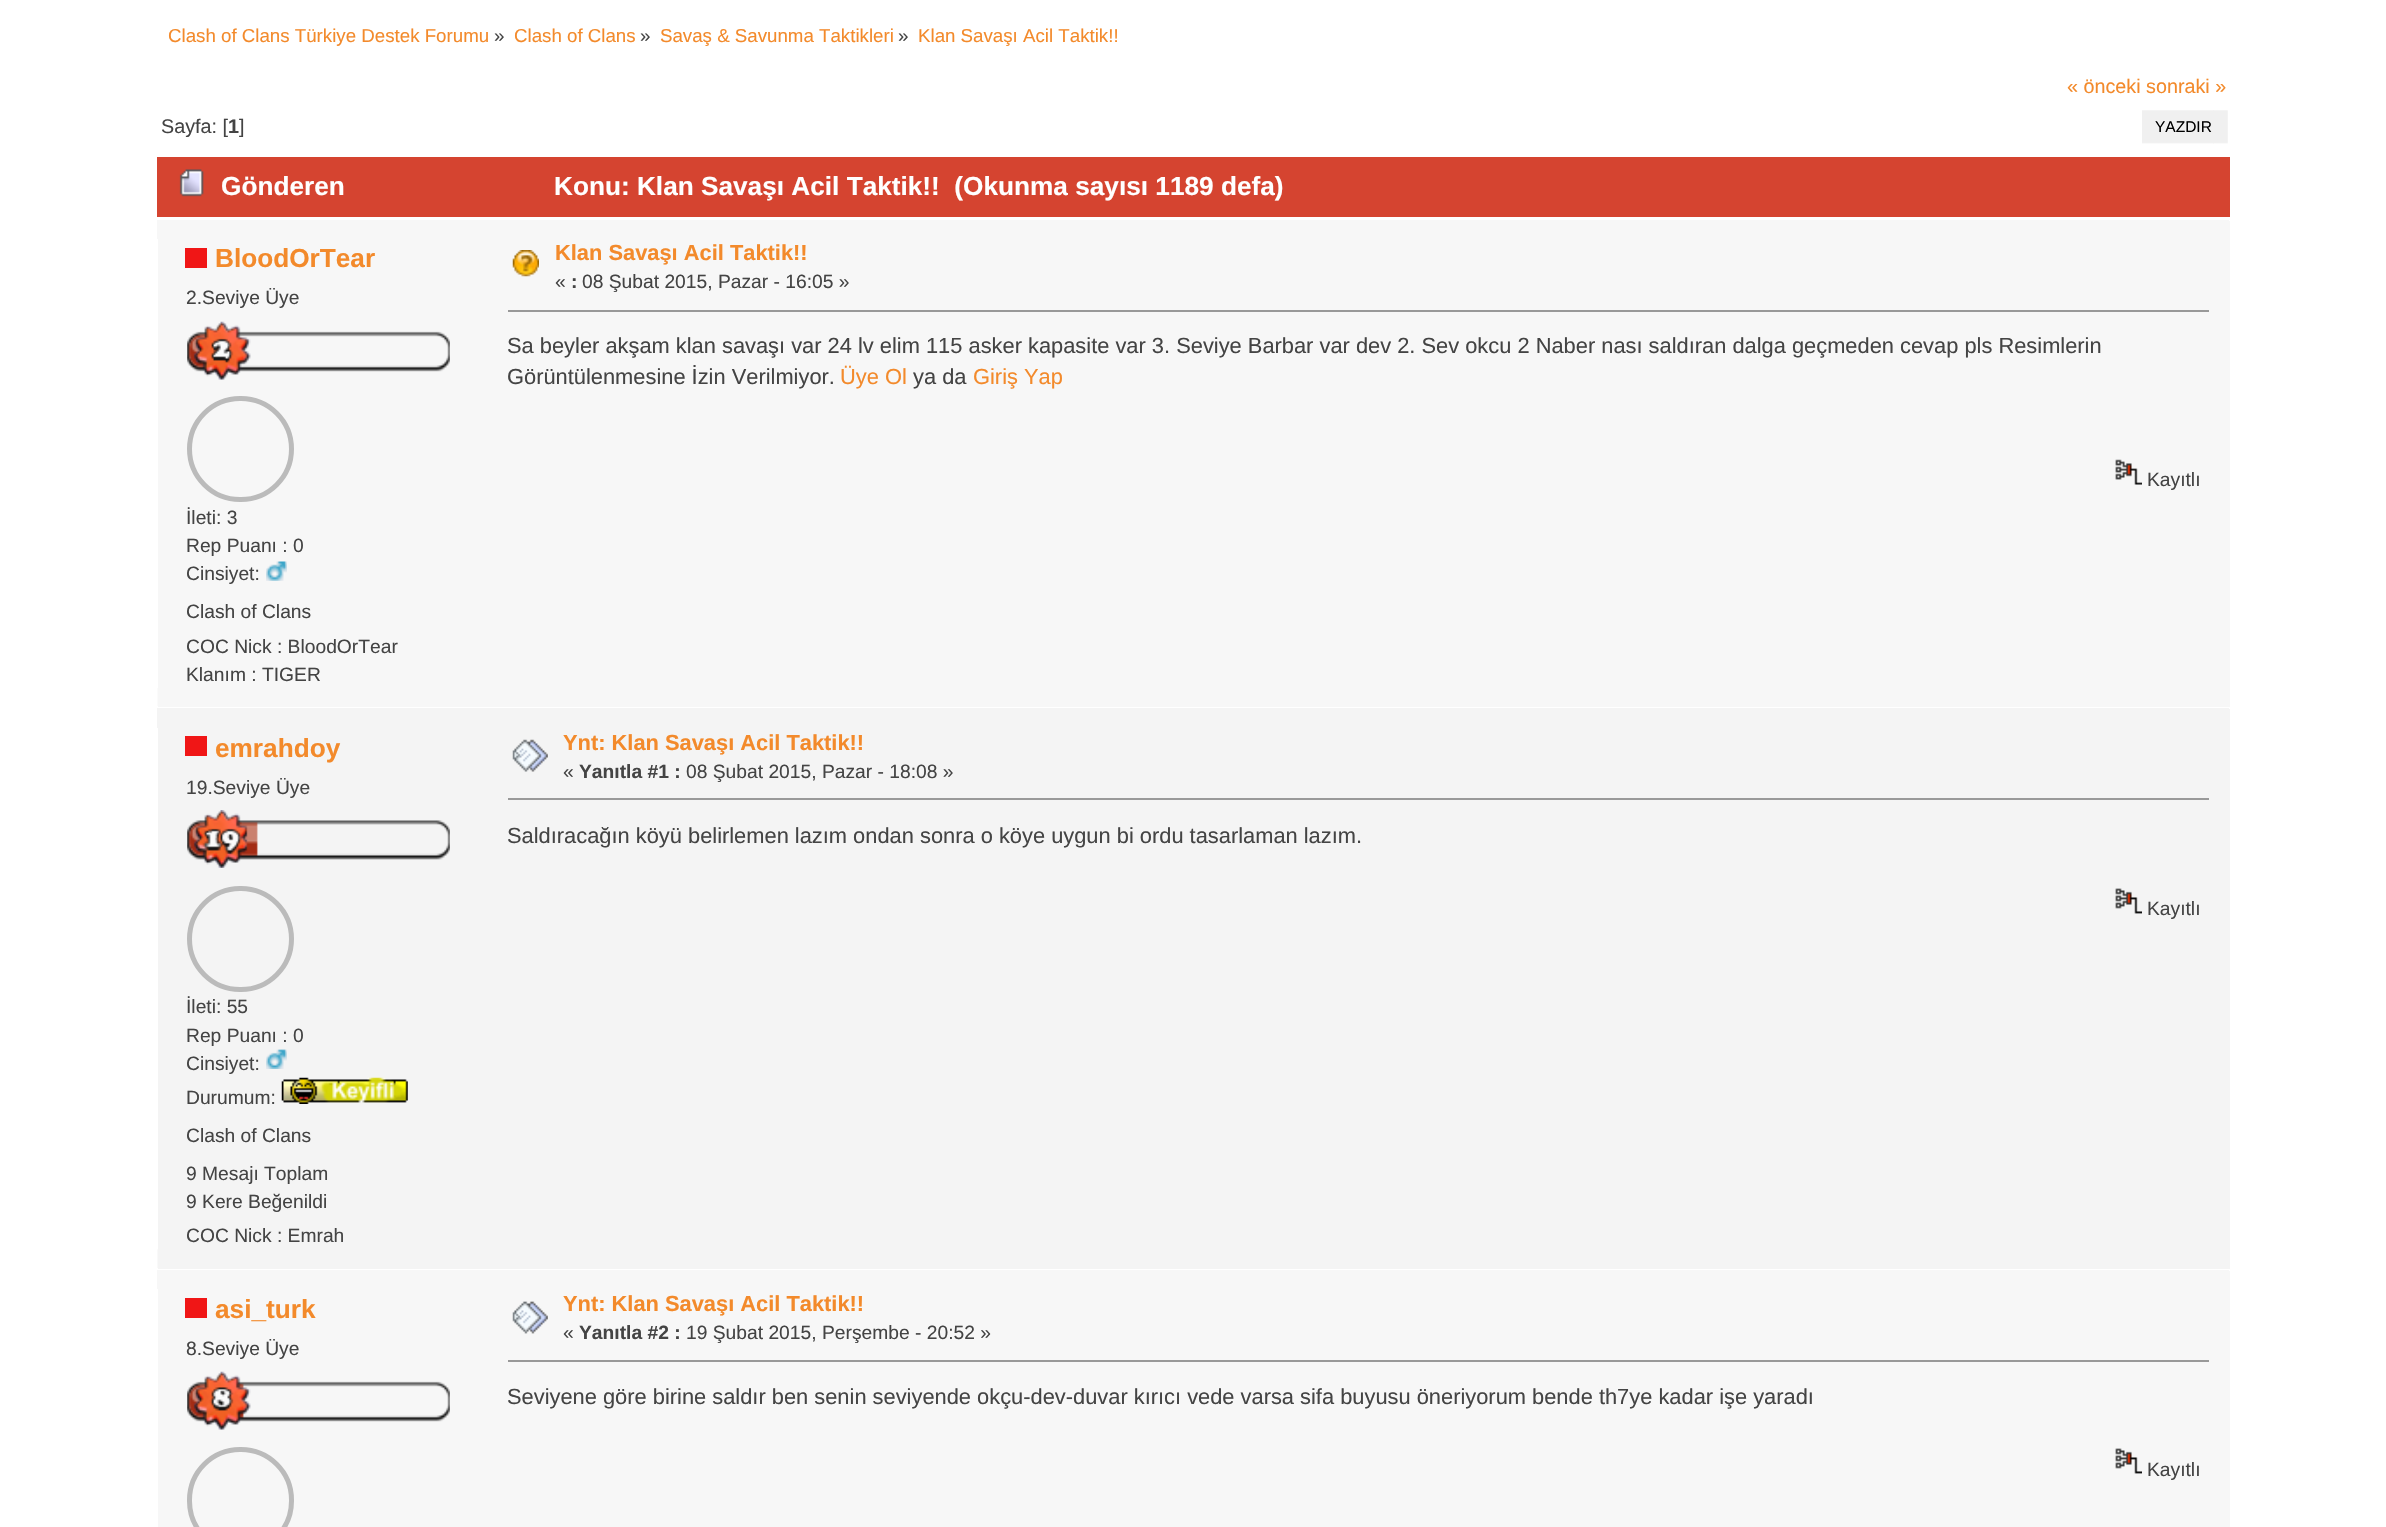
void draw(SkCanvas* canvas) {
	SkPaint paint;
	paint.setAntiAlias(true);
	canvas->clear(0xffffffff);
	SkFont f1(fontMgr->matchFamilyStyle("Liberation Sans", SkFontStyle::Normal()), 18.7);
	f1.setSubpixel(true);
	paint.setColor(0xfff38a2b);
	canvas->drawString("Clash of Clans Türkiye Destek Forumu", 168, 42, f1, paint);
	paint.setColor(0xff444444);
	canvas->drawString("»", 494, 42, f1, paint);
	paint.setColor(0xfff38a2b);
	canvas->drawString("Clash of Clans", 514, 42, f1, paint);
	paint.setColor(0xff444444);
	canvas->drawString("»", 640, 42, f1, paint);
	paint.setColor(0xfff38a2b);
	canvas->drawString("Savaş & Savunma Taktikleri", 660, 42, f1, paint);
	paint.setColor(0xff444444);
	canvas->drawString("»", 898, 42, f1, paint);
	paint.setColor(0xfff38a2b);
	canvas->drawString("Klan Savaşı Acil Taktik!!", 918, 42, f1, paint);
	SkFont f2(fontMgr->matchFamilyStyle("Liberation Sans", SkFontStyle::Normal()), 19.75);
	f2.setSubpixel(true);
	canvas->drawString("« önceki sonraki »", 2067, 93, f2, paint);
	paint.setColor(0xff444444);
	canvas->drawString("Sayfa: [", 161, 133, f2, paint);
	SkFont f3(fontMgr->matchFamilyStyle("Liberation Sans", SkFontStyle::Bold()), 19.75);
	f3.setSubpixel(true);
	canvas->drawString("1", 228, 133, f3, paint);
	canvas->drawString("]", 239, 133, f2, paint);
	canvas->drawImageRect(SkImages::DeferredFromEncodedData(SkData::MakeFromFileName("img1.png")), SkRect::MakeXYWH(2142, 110, 72, 34), SkSamplingOptions());
	canvas->drawImageRect(SkImages::DeferredFromEncodedData(SkData::MakeFromFileName("img2.png")), SkRect::MakeXYWH(2213, 110, 15, 34), SkSamplingOptions());
	SkFont f4(fontMgr->matchFamilyStyle("Liberation Sans", SkFontStyle::Normal()), 15.5);
	f4.setSubpixel(true);
	paint.setColor(0xff000000);
	canvas->drawString("YAZDIR", 2155, 132, f4, paint);
	paint.setColor(0xffd54430);
	canvas->drawRect(SkRect::MakeXYWH(157, 157, 2073, 60), paint);
	canvas->drawImageRect(SkImages::DeferredFromEncodedData(SkData::MakeFromFileName("img3.png")), SkRect::MakeXYWH(179, 169, 25, 28), SkSamplingOptions());
	SkFont f5(fontMgr->matchFamilyStyle("Liberation Sans", SkFontStyle::Bold()), 26.2);
	f5.setSubpixel(true);
	paint.setColor(0xffffffff);
	canvas->drawString("Gönderen", 221, 195, f5, paint);
	canvas->drawString("Konu: Klan Savaşı Acil Taktik!!  (Okunma sayısı 1189 defa)", 554, 195, f5, paint);
	paint.setColor(0xfff7f7f7);
	canvas->drawRect(SkRect::MakeXYWH(158, 221, 2072, 486), paint);
	canvas->drawRect(SkRect::MakeXYWH(157, 220, 2072, 19), paint);
	paint.setColor(0xfff01616);
	canvas->drawRect(SkRect::MakeXYWH(185, 248, 22, 20), paint);
	paint.setColor(0xfff38a2b);
	canvas->drawString("BloodOrTear", 215, 267, f5, paint);
	SkFont f6(fontMgr->matchFamilyStyle("Liberation Sans", SkFontStyle::Normal()), 19.25);
	f6.setSubpixel(true);
	paint.setColor(0xff444444);
	canvas->drawString("2.Seviye Üye", 186, 304, f6, paint);
	canvas->drawImageRect(SkImages::DeferredFromEncodedData(SkData::MakeFromFileName("img4.png")), SkRect::MakeXYWH(187, 321, 263, 59), SkSamplingOptions());
	paint.setStroke(true);
	paint.setStrokeWidth(5);
	paint.setColor(0xffbbbbbb);
	canvas->drawRoundRect(SkRect::MakeXYWH(189.5, 398.5, 102, 101), 50.5, 50.5, paint);
	paint.setStroke(false);
	paint.setColor(0xff444444);
	canvas->drawString("İleti: 3", 186, 524, f6, paint);
	canvas->drawString("Rep Puanı : 0", 186, 552, f6, paint);
	canvas->drawString("Cinsiyet:", 186, 580, f6, paint);
	canvas->drawImageRect(SkImages::DeferredFromEncodedData(SkData::MakeFromFileName("img5.png")), SkRect::MakeXYWH(266, 561, 21, 20), SkSamplingOptions());
	canvas->drawString("Clash of Clans", 186, 618, f6, paint);
	canvas->drawString("COC Nick : BloodOrTear", 186, 653, f6, paint);
	canvas->drawString("Klanım : TIGER", 186, 681, f6, paint);
	canvas->drawImageRect(SkImages::DeferredFromEncodedData(SkData::MakeFromFileName("img6.png")), SkRect::MakeXYWH(512, 250, 27, 27), SkSamplingOptions());
	SkFont f7(fontMgr->matchFamilyStyle("Liberation Sans", SkFontStyle::Bold()), 21.85);
	f7.setSubpixel(true);
	paint.setColor(0xfff38a2b);
	canvas->drawString("Klan Savaşı Acil Taktik!!", 555, 260, f7, paint);
	paint.setColor(0xff444444);
	canvas->drawString("«", 555, 288, f6, paint);
	SkFont f8(fontMgr->matchFamilyStyle("Liberation Sans", SkFontStyle::Bold()), 19.25);
	f8.setSubpixel(true);
	canvas->drawString(":", 571, 288, f8, paint);
	canvas->drawString("08 Şubat 2015, Pazar - 16:05 »", 582, 288, f6, paint);
	paint.setColor(0xff999999);
	canvas->drawRect(SkRect::MakeXYWH(508, 310, 1701, 2), paint);
	SkFont f9(fontMgr->matchFamilyStyle("Liberation Sans", SkFontStyle::Normal()), 21.85);
	f9.setSubpixel(true);
	paint.setColor(0xff444444);
	canvas->drawString("Sa beyler akşam klan savaşı var 24 lv elim 115 asker kapasite var 3. Seviye Barbar var dev 2. Sev okcu 2 Naber nası saldıran dalga geçmeden cevap pls Resimlerin", 507, 353, f9, paint);
	canvas->drawString("Görüntülenmesine İzin Verilmiyor.", 507, 384, f9, paint);
	paint.setColor(0xfff38a2b);
	canvas->drawString("Üye Ol", 840, 384, f9, paint);
	paint.setColor(0xff444444);
	canvas->drawString("ya da", 913, 384, f9, paint);
	paint.setColor(0xfff38a2b);
	canvas->drawString("Giriş Yap", 973, 384, f9, paint);
	canvas->drawImageRect(SkImages::DeferredFromEncodedData(SkData::MakeFromFileName("img7.png")), SkRect::MakeXYWH(2115, 459, 27, 26), SkSamplingOptions());
	paint.setColor(0xff444444);
	canvas->drawString("Kayıtlı", 2147, 486, f6, paint);
	paint.setColor(0xfffbfbfb);
	canvas->drawRect(SkRect::MakeXYWH(157, 688, 1, 18), paint);
	paint.setColor(0xfff4f4f4);
	canvas->drawRect(SkRect::MakeXYWH(158, 709, 2072, 560), paint);
	canvas->drawRect(SkRect::MakeXYWH(157, 708, 2072, 20), paint);
	paint.setColor(0xfff01616);
	canvas->drawRect(SkRect::MakeXYWH(185, 736, 22, 20), paint);
	paint.setColor(0xfff38a2b);
	canvas->drawString("emrahdoy", 215, 757, f5, paint);
	paint.setColor(0xff444444);
	canvas->drawString("19.Seviye Üye", 186, 794, f6, paint);
	canvas->drawImageRect(SkImages::DeferredFromEncodedData(SkData::MakeFromFileName("img8.png")), SkRect::MakeXYWH(187, 810, 263, 58), SkSamplingOptions());
	paint.setStroke(true);
	paint.setColor(0xffbbbbbb);
	canvas->drawRoundRect(SkRect::MakeXYWH(189.5, 888.5, 102, 101), 50.5, 50.5, paint);
	paint.setStroke(false);
	paint.setColor(0xff444444);
	canvas->drawString("İleti: 55", 186, 1013, f6, paint);
	canvas->drawString("Rep Puanı : 0", 186, 1042, f6, paint);
	canvas->drawString("Cinsiyet:", 186, 1070, f6, paint);
	canvas->drawImageRect(SkImages::DeferredFromEncodedData(SkData::MakeFromFileName("img9.png")), SkRect::MakeXYWH(266, 1049, 21, 20), SkSamplingOptions());
	canvas->drawString("Durumum:", 186, 1104, f6, paint);
	canvas->drawImageRect(SkImages::DeferredFromEncodedData(SkData::MakeFromFileName("img10.png")), SkRect::MakeXYWH(281, 1077, 127, 27), SkSamplingOptions());
	canvas->drawString("Clash of Clans", 186, 1142, f6, paint);
	canvas->drawString("9 Mesajı Toplam", 186, 1180, f6, paint);
	canvas->drawString("9 Kere Beğenildi", 186, 1208, f6, paint);
	canvas->drawString("COC Nick : Emrah", 186, 1242, f6, paint);
	canvas->drawImageRect(SkImages::DeferredFromEncodedData(SkData::MakeFromFileName("img11.png")), SkRect::MakeXYWH(512, 739, 36, 33), SkSamplingOptions());
	paint.setColor(0xfff38a2b);
	canvas->drawString("Ynt: Klan Savaşı Acil Taktik!!", 563, 750, f7, paint);
	paint.setColor(0xff444444);
	canvas->drawString("«", 563, 778, f6, paint);
	canvas->drawString("Yanıtla #1 :", 579, 778, f8, paint);
	canvas->drawString("08 Şubat 2015, Pazar - 18:08 »", 686, 778, f6, paint);
	paint.setColor(0xff999999);
	canvas->drawRect(SkRect::MakeXYWH(508, 798, 1701, 2), paint);
	paint.setColor(0xff444444);
	canvas->drawString("Saldıracağın köyü belirlemen lazım ondan sonra o köye uygun bi ordu tasarlaman lazım.", 507, 843, f9, paint);
	canvas->drawImageRect(SkImages::DeferredFromEncodedData(SkData::MakeFromFileName("img12.png")), SkRect::MakeXYWH(2115, 888, 27, 26), SkSamplingOptions());
	canvas->drawString("Kayıtlı", 2147, 915, f6, paint);
	canvas->drawImageRect(SkImages::DeferredFromEncodedData(SkData::MakeFromFileName("img13.png")), SkRect::MakeXYWH(157, 1249, 1, 19), SkSamplingOptions());
	paint.setColor(0xfff7f7f7);
	canvas->drawRect(SkRect::MakeXYWH(158, 1271, 2072, 256), paint);
	canvas->drawRect(SkRect::MakeXYWH(157, 1270, 2072, 19), paint);
	paint.setColor(0xfff01616);
	canvas->drawRect(SkRect::MakeXYWH(185, 1298, 22, 20), paint);
	paint.setColor(0xfff38a2b);
	canvas->drawString("asi_turk", 215, 1318, f5, paint);
	paint.setColor(0xff444444);
	canvas->drawString("8.Seviye Üye", 186, 1355, f6, paint);
	canvas->drawImageRect(SkImages::DeferredFromEncodedData(SkData::MakeFromFileName("img14.png")), SkRect::MakeXYWH(187, 1371, 263, 59), SkSamplingOptions());
	paint.setStroke(true);
	paint.setColor(0xffbbbbbb);
	canvas->drawRoundRect(SkRect::MakeXYWH(189.5, 1449.5, 102, 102), 50.5, 50.5, paint);
	canvas->drawImageRect(SkImages::DeferredFromEncodedData(SkData::MakeFromFileName("img15.png")), SkRect::MakeXYWH(512, 1301, 36, 33), SkSamplingOptions());
	paint.setStroke(false);
	paint.setColor(0xfff38a2b);
	canvas->drawString("Ynt: Klan Savaşı Acil Taktik!!", 563, 1311, f7, paint);
	paint.setColor(0xff444444);
	canvas->drawString("«", 563, 1339, f6, paint);
	canvas->drawString("Yanıtla #2 :", 579, 1339, f8, paint);
	canvas->drawString("19 Şubat 2015, Perşembe - 20:52 »", 686, 1339, f6, paint);
	paint.setColor(0xff999999);
	canvas->drawRect(SkRect::MakeXYWH(508, 1360, 1701, 2), paint);
	paint.setColor(0xff444444);
	canvas->drawString("Seviyene göre birine saldır ben senin seviyende okçu-dev-duvar kırıcı vede varsa sifa buyusu öneriyorum bende th7ye kadar işe yaradı", 507, 1404, f9, paint);
	canvas->drawImageRect(SkImages::DeferredFromEncodedData(SkData::MakeFromFileName("img16.png")), SkRect::MakeXYWH(2115, 1448, 27, 26), SkSamplingOptions());
	canvas->drawString("Kayıtlı", 2147, 1476, f6, paint);
}
